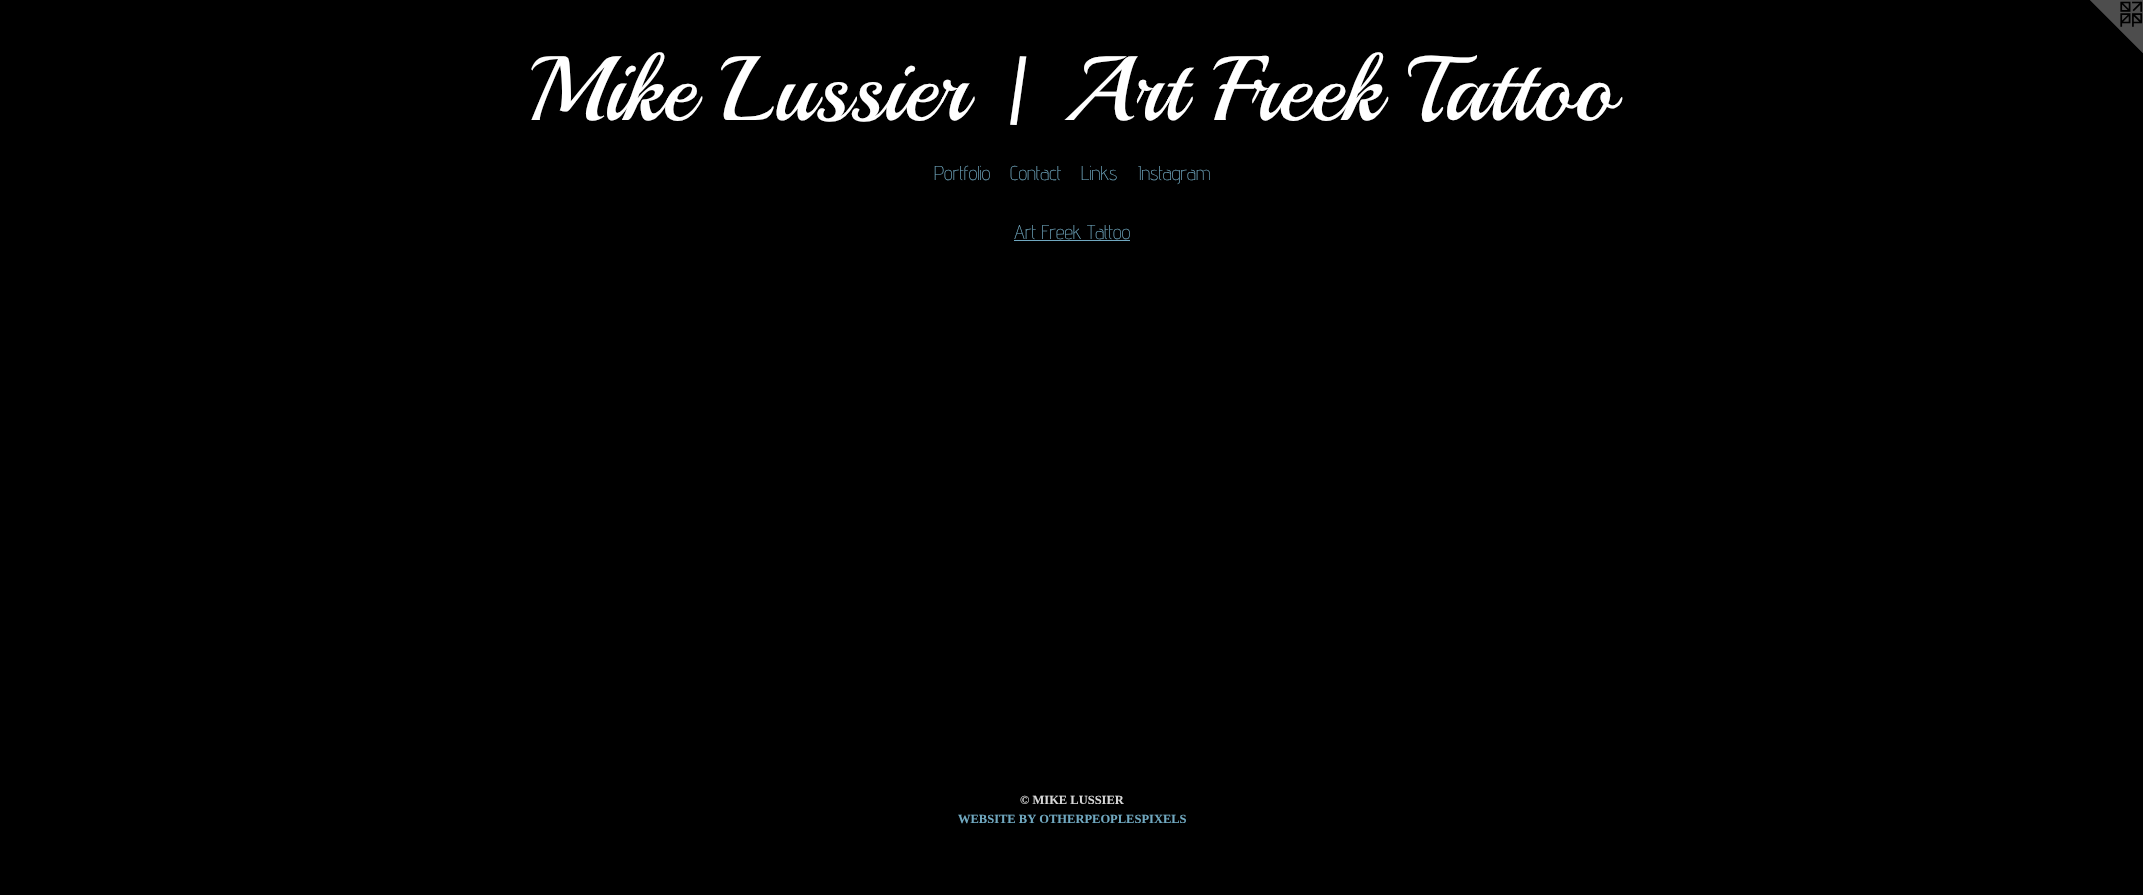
void draw(SkCanvas* canvas) {
	SkPaint paint;
	paint.setAntiAlias(true);
	canvas->clear(0xff000000);
	canvas->drawImageRect(SkImages::DeferredFromEncodedData(SkData::MakeFromFileName("img1.png")), SkRect::MakeXYWH(2090, 0, 53, 53), SkSamplingOptions());
	SkFont f1(fontMgr->matchFamilyStyle("Playball", SkFontStyle::Normal()), 91.25);
	f1.setSubpixel(true);
	paint.setColor(0xffffffff);
	canvas->drawString("Mike Lussier | Art Freek Tattoo", 528, 120, f1, paint);
	SkFont f2(fontMgr->matchFamilyStyle("Advent Pro", SkFontStyle(200, SkFontStyle::kNormal_Width, SkFontStyle::kUpright_Slant)), 20);
	f2.setSubpixel(true);
	paint.setColor(0xff70a8c0);
	canvas->drawString("Portfolio", 934, 180, f2, paint);
	canvas->drawString("Contact", 1010, 180, f2, paint);
	canvas->drawString("Links", 1081, 180, f2, paint);
	canvas->drawString("Instagram", 1138, 180, f2, paint);
	canvas->drawString("Art Freek Tattoo", 1014, 239, f2, paint);
	canvas->drawRect(SkRect::MakeXYWH(1014, 240, 116, 1), paint);
	SkFont f3(fontMgr->matchFamilyStyle("Liberation Serif", SkFontStyle::Bold()), 12.5);
	f3.setSubpixel(true);
	paint.setColor(0xffd6d6d6);
	canvas->drawString("© MIKE LUSSIER", 1020, 804, f3, paint);
	paint.setColor(0xff70a8c0);
	canvas->drawString("WEBSITE BY OTHERPEOPLESPIXELS", 958, 823, f3, paint);
}
